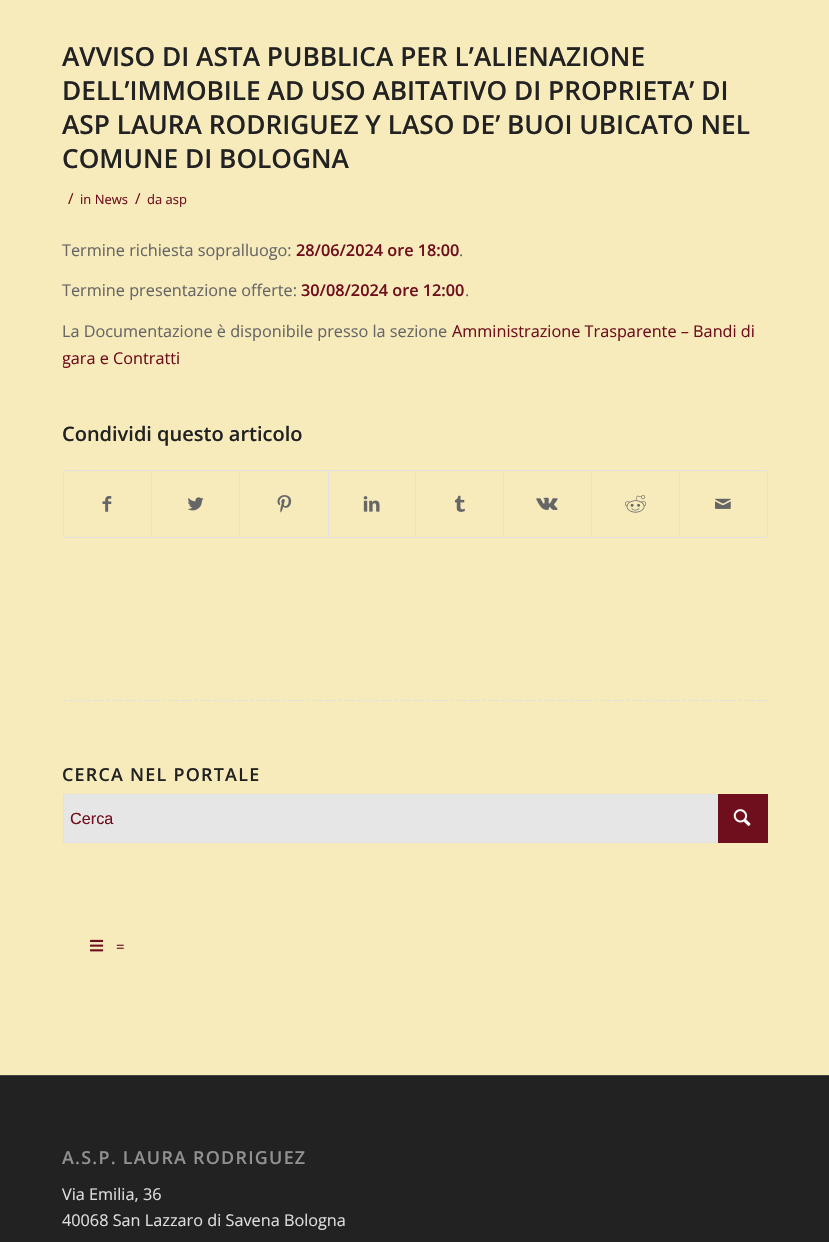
void draw(SkCanvas* canvas) {
	SkPaint paint;
	paint.setAntiAlias(true);
	auto spacedText = [&](const char* s, float x, float y, const SkFont& font, const SkPaint& ink, float letter, float word) {
		std::vector<SkGlyphID> glyphs(font.countText(s, strlen(s), SkTextEncoding::kUTF8));
		std::vector<float> xs(glyphs.size());
		font.textToGlyphs(s, strlen(s), SkTextEncoding::kUTF8, glyphs);
		font.getXPos(glyphs, xs, x);
		float extra = 0;
		for (size_t i = 0; i < glyphs.size(); i++) {
			xs[i] += extra;
			extra += letter + word * (glyphs[i] == font.unicharToGlyph(' '));
		}
		canvas->drawTextBlob(SkTextBlob::MakeFromPosHGlyphs(glyphs, xs, y, font), 0, 0, ink);
	};
	auto svgPath = [&](const char* data, bool evenOdd = false) {
		SkPath result = *SkParsePath::FromSVGString(data);
		if (evenOdd) result.setFillType(SkPathFillType::kEvenOdd);
		return result;
	};
	canvas->clear(0xfff7ebbc);
	SkFont f1(fontMgr->matchFamilyStyle("Open Sans", SkFontStyle(600, SkFontStyle::kNormal_Width, SkFontStyle::kUpright_Slant)), 26.25);
	f1.setSubpixel(true);
	paint.setColor(0xff222222);
	canvas->drawString("AVVISO DI ASTA PUBBLICA PER L’ALIENAZIONE", 62, 66, f1, paint);
	canvas->drawString("DELL’IMMOBILE AD USO ABITATIVO DI PROPRIETA’ DI", 62, 100, f1, paint);
	canvas->drawString("ASP LAURA RODRIGUEZ Y LASO DE’ BUOI UBICATO NEL", 62, 134, f1, paint);
	canvas->drawString("COMUNE DI BOLOGNA", 62, 168, f1, paint);
	SkFont f2(fontMgr->matchFamilyStyle("Open Sans", SkFontStyle::Normal()), 15);
	f2.setSubpixel(true);
	paint.setColor(0xff6f0e1c);
	canvas->drawString("/", 68, 204, f2, paint);
	SkFont f3(fontMgr->matchFamilyStyle("Open Sans", SkFontStyle::Normal()), 13);
	f3.setSubpixel(true);
	canvas->drawString("in News", 80, 204, f3, paint);
	canvas->drawString("/", 135, 204, f2, paint);
	canvas->drawString("da asp", 147, 204, f3, paint);
	SkFont f4(fontMgr->matchFamilyStyle("Open Sans", SkFontStyle::Normal()), 16.25);
	f4.setSubpixel(true);
	paint.setColor(0xff666666);
	canvas->drawString("Termine richiesta sopralluogo:", 62, 256, f4, paint);
	SkFont f5(fontMgr->matchFamilyStyle("Open Sans", SkFontStyle(600, SkFontStyle::kNormal_Width, SkFontStyle::kUpright_Slant)), 16.25);
	f5.setSubpixel(true);
	paint.setColor(0xff6f0e1c);
	canvas->drawString("28/06/2024 ore 18:00", 296, 256, f5, paint);
	paint.setColor(0xff666666);
	canvas->drawString(".", 459, 256, f4, paint);
	canvas->drawString("Termine presentazione offerte:", 62, 296, f4, paint);
	paint.setColor(0xff6f0e1c);
	canvas->drawString("30/08/2024 ore 12:00", 301, 296, f5, paint);
	paint.setColor(0xff666666);
	canvas->drawString(".", 465, 296, f4, paint);
	canvas->drawString("La Documentazione è disponibile presso la sezione", 62, 337, f4, paint);
	paint.setColor(0xff6f0e1c);
	canvas->drawString("Amministrazione Trasparente – Bandi di", 452, 337, f4, paint);
	canvas->save();
	canvas->clipRect(SkRect::MakeXYWH(63, 40, 705, 573));
	canvas->drawString("gara e Contratti", 62, 364, f4, paint);
	canvas->restore();
	SkFont f6(fontMgr->matchFamilyStyle("Open Sans", SkFontStyle(600, SkFontStyle::kNormal_Width, SkFontStyle::kUpright_Slant)), 20);
	f6.setSubpixel(true);
	paint.setColor(0xff222222);
	canvas->drawString("Condividi questo articolo", 62, 441, f6, paint);
	paint.setStroke(true);
	paint.setStrokeWidth(1);
	paint.setColor(0xffe1e1e1);
	canvas->drawRoundRect(SkRect::MakeXYWH(63.5, 470.5, 704, 67), 3.5, 3.5, paint);
	canvas->drawImageRect(SkImages::DeferredFromEncodedData(SkData::MakeFromFileName("img1.png")), SkRect::MakeXYWH(102, 496, 10, 16), SkSamplingOptions());
	paint.setStroke(false);
	canvas->drawRect(SkRect::MakeXYWH(151, 471, 1, 65), paint);
	canvas->drawImageRect(SkImages::DeferredFromEncodedData(SkData::MakeFromFileName("img2.png")), SkRect::MakeXYWH(187, 497, 17, 14), SkSamplingOptions());
	canvas->drawRect(SkRect::MakeXYWH(239, 471, 1, 65), paint);
	canvas->drawImageRect(SkImages::DeferredFromEncodedData(SkData::MakeFromFileName("img3.png")), SkRect::MakeXYWH(277, 495, 15, 18), SkSamplingOptions());
	canvas->drawRect(SkRect::MakeXYWH(328, 471, 1, 65), paint);
	canvas->drawImageRect(SkImages::DeferredFromEncodedData(SkData::MakeFromFileName("img4.png")), SkRect::MakeXYWH(363, 496, 17, 16), SkSamplingOptions());
	canvas->drawRect(SkRect::MakeXYWH(415, 471, 1, 65), paint);
	canvas->drawImageRect(SkImages::DeferredFromEncodedData(SkData::MakeFromFileName("img5.png")), SkRect::MakeXYWH(455, 495, 10, 17), SkSamplingOptions());
	canvas->drawRect(SkRect::MakeXYWH(503, 471, 1, 65), paint);
	canvas->drawImageRect(SkImages::DeferredFromEncodedData(SkData::MakeFromFileName("img6.png")), SkRect::MakeXYWH(536, 497, 22, 13), SkSamplingOptions());
	canvas->drawRect(SkRect::MakeXYWH(591, 471, 1, 65), paint);
	canvas->drawImageRect(SkImages::DeferredFromEncodedData(SkData::MakeFromFileName("img7.png")), SkRect::MakeXYWH(625, 495, 22, 18), SkSamplingOptions());
	canvas->drawRect(SkRect::MakeXYWH(679, 471, 1, 65), paint);
	canvas->drawImageRect(SkImages::DeferredFromEncodedData(SkData::MakeFromFileName("img8.png")), SkRect::MakeXYWH(715, 498, 16, 11), SkSamplingOptions());
	paint.setStroke(true);
	paint.setStrokeWidth(1.2);
	paint.setPathEffect(SkDashPathEffect::Make({{3.75f, 2.51f}}, 0));
	canvas->drawPath(svgPath("M62.5 700.5H767.5"), paint);
	paint.setPathEffect(nullptr);
	SkFont f7(fontMgr->matchFamilyStyle("Open Sans", SkFontStyle(600, SkFontStyle::kNormal_Width, SkFontStyle::kUpright_Slant)), 17.9);
	f7.setSubpixel(true);
	paint.setStroke(false);
	paint.setColor(0xff222222);
	spacedText("CERCA NEL PORTALE", 62, 781, f7, paint, 1.25, 0);
	paint.setColor(0xffe6e6e6);
	canvas->drawRect(SkRect::MakeXYWH(64, 795, 654, 47), paint);
	paint.setStroke(true);
	paint.setStrokeWidth(1);
	paint.setColor(0xffe1e1e1);
	canvas->drawRect(SkRect::MakeXYWH(63.5, 794.5, 704, 48), paint);
	SkFont f8(fontMgr->matchFamilyStyle("Liberation Sans", SkFontStyle::Normal()), 16.25);
	f8.setSubpixel(true);
	paint.setStroke(false);
	paint.setColor(0xff6f0e1c);
	canvas->drawString("Cerca", 70, 824, f8, paint);
	canvas->drawRect(SkRect::MakeXYWH(718, 794, 50, 49), paint);
	canvas->drawImageRect(SkImages::DeferredFromEncodedData(SkData::MakeFromFileName("img9.png")), SkRect::MakeXYWH(733, 809, 18, 17), SkSamplingOptions());
	canvas->drawImageRect(SkImages::DeferredFromEncodedData(SkData::MakeFromFileName("img10.png")), SkRect::MakeXYWH(90, 939, 14, 13), SkSamplingOptions());
	canvas->drawString("=", 116, 952, f2, paint);
	paint.setColor(0xff222222);
	canvas->drawRect(SkRect::MakeXYWH(0, 1076, 829, 166), paint);
	paint.setColor(0xff444444);
	canvas->drawRect(SkRect::MakeXYWH(0, 1075, 829, 1), paint);
	paint.setColor(0xff919191);
	spacedText("A.S.P. LAURA RODRIGUEZ", 62, 1164, f7, paint, 1.25, 0);
	paint.setColor(0xffdddddd);
	canvas->drawString("Via Emilia, 36", 62, 1200, f4, paint);
	canvas->drawString("40068 San Lazzaro di Savena Bologna", 62, 1226, f4, paint);
}
